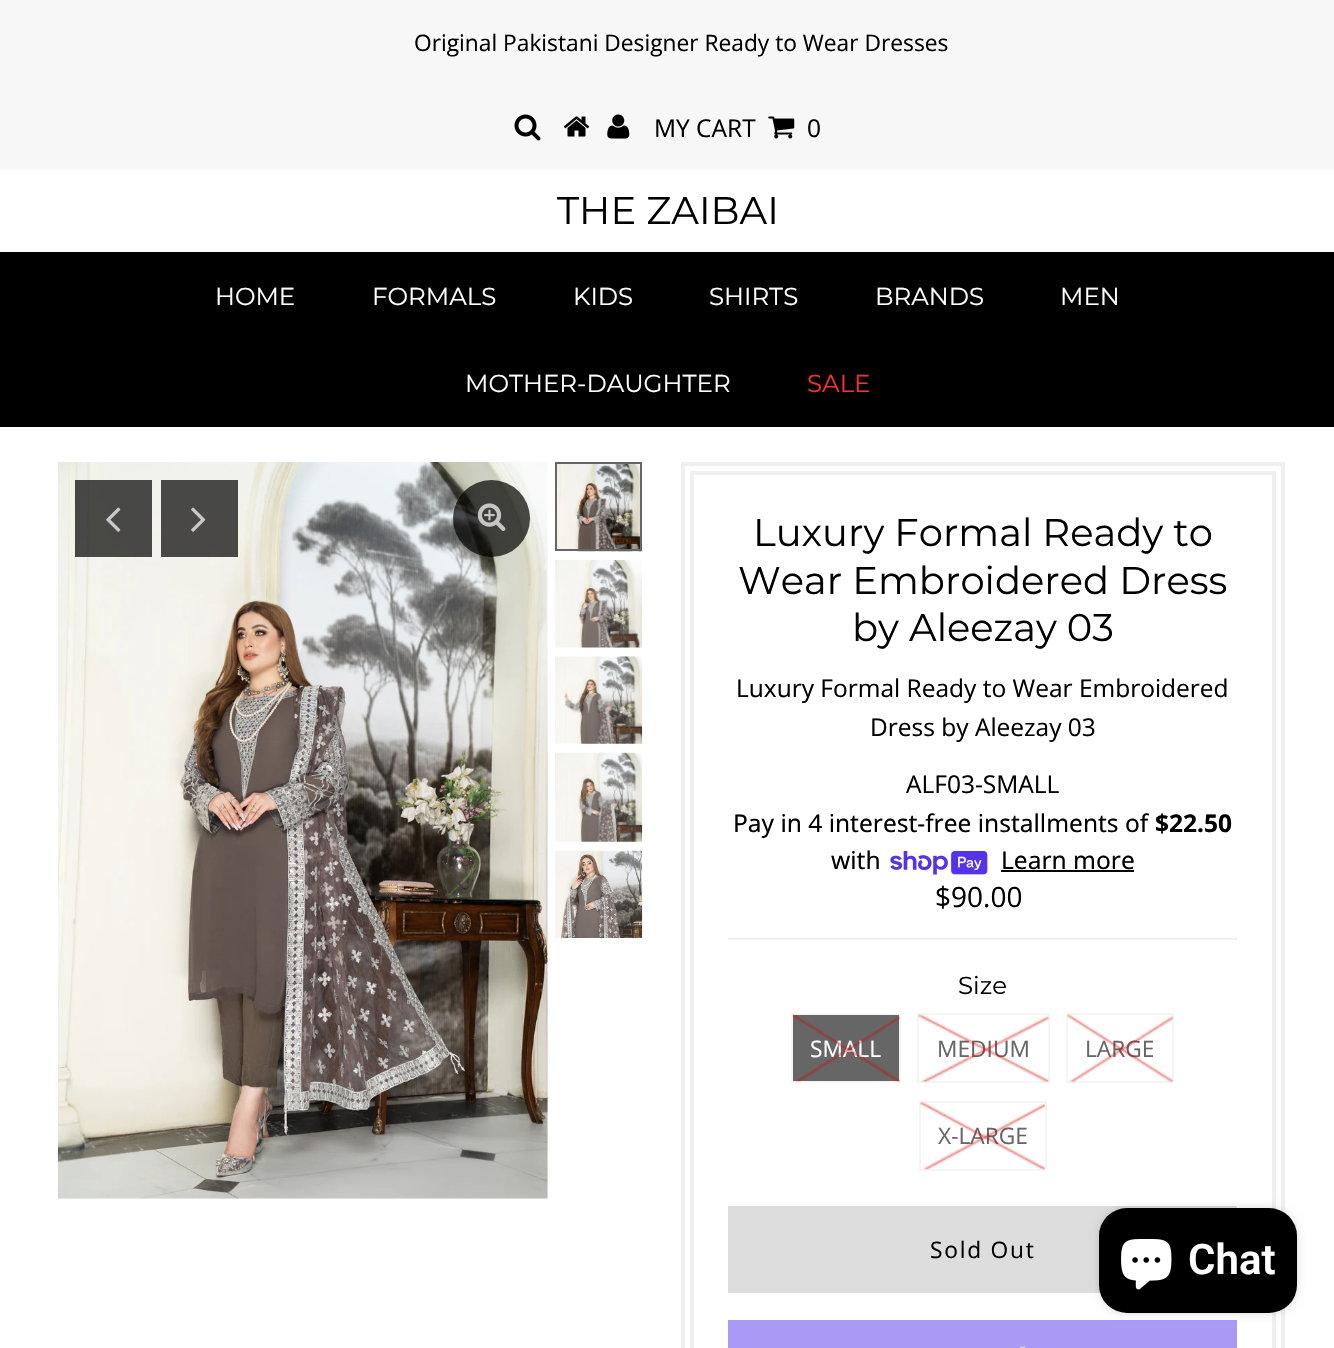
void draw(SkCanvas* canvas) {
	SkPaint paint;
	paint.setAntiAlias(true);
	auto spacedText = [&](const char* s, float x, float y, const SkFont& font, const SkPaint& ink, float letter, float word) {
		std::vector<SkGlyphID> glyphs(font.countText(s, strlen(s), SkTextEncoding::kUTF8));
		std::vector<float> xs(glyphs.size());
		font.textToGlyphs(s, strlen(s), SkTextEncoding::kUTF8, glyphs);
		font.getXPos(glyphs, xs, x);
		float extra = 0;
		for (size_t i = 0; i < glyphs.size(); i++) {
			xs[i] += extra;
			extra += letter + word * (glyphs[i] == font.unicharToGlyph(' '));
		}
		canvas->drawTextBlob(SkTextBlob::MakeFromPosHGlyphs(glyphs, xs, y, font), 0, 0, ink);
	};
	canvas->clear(0xffffffff);
	paint.setColor(0xfff7f7f7);
	canvas->drawRect(SkRect::MakeXYWH(0, 0, 1334, 170), paint);
	SkFont f1(fontMgr->matchFamilyStyle("Open Sans", SkFontStyle::Normal()), 22.75);
	f1.setSubpixel(true);
	paint.setColor(0xff000000);
	canvas->drawString("Original Pakistani Designer Ready to Wear Dresses", 414, 51, f1, paint);
	canvas->drawImageRect(SkImages::DeferredFromEncodedData(SkData::MakeFromFileName("img1.png")), SkRect::MakeXYWH(514, 114, 27, 27), SkSamplingOptions());
	canvas->drawImageRect(SkImages::DeferredFromEncodedData(SkData::MakeFromFileName("img2.png")), SkRect::MakeXYWH(563, 116, 27, 21), SkSamplingOptions());
	canvas->drawImageRect(SkImages::DeferredFromEncodedData(SkData::MakeFromFileName("img3.png")), SkRect::MakeXYWH(607, 114, 23, 25), SkSamplingOptions());
	SkFont f2(fontMgr->matchFamilyStyle("Open Sans", SkFontStyle::Normal()), 24.5);
	f2.setSubpixel(true);
	canvas->drawString("MY CART", 654, 137, f2, paint);
	canvas->drawImageRect(SkImages::DeferredFromEncodedData(SkData::MakeFromFileName("img4.png")), SkRect::MakeXYWH(768, 116, 27, 23), SkSamplingOptions());
	canvas->drawString("0", 807, 137, f2, paint);
	SkFont f3(fontMgr->matchFamilyStyle("Montserrat", SkFontStyle::Normal()), 38.5);
	f3.setSubpixel(true);
	canvas->drawString("THE ZAIBAI", 557, 224, f3, paint);
	canvas->drawRect(SkRect::MakeXYWH(0, 252, 1334, 175), paint);
	SkFont f4(fontMgr->matchFamilyStyle("Montserrat", SkFontStyle::Normal()), 24.5);
	f4.setSubpixel(true);
	paint.setColor(0xffffffff);
	canvas->drawString("HOME", 215, 305, f4, paint);
	canvas->drawString("FORMALS", 372, 305, f4, paint);
	canvas->drawString("KIDS", 573, 305, f4, paint);
	canvas->drawString("SHIRTS", 709, 305, f4, paint);
	canvas->drawString("BRANDS", 875, 305, f4, paint);
	canvas->drawString("MEN", 1060, 305, f4, paint);
	canvas->drawString("MOTHER-DAUGHTER", 465, 392, f4, paint);
	paint.setColor(0xfffa3030);
	canvas->drawString("SALE", 807, 392, f4, paint);
	canvas->drawImageRect(SkImages::DeferredFromEncodedData(SkData::MakeFromFileName("img5.png")), SkRect::MakeXYWH(57, 462, 491, 737), SkSamplingOptions());
	paint.setColor(0xb3000000);
	canvas->drawCircle(491.5, 518.5, 38.5, paint);
	canvas->drawImageRect(SkImages::DeferredFromEncodedData(SkData::MakeFromFileName("img6.png")), SkRect::MakeXYWH(477, 503, 29, 28), SkSamplingOptions());
	canvas->drawRect(SkRect::MakeXYWH(75, 480, 77, 77), paint);
	canvas->drawImageRect(SkImages::DeferredFromEncodedData(SkData::MakeFromFileName("img7.png")), SkRect::MakeXYWH(106, 507, 15, 25), SkSamplingOptions());
	canvas->drawRect(SkRect::MakeXYWH(161, 480, 77, 77), paint);
	canvas->drawImageRect(SkImages::DeferredFromEncodedData(SkData::MakeFromFileName("img8.png")), SkRect::MakeXYWH(191, 507, 15, 25), SkSamplingOptions());
	canvas->drawImageRect(SkImages::DeferredFromEncodedData(SkData::MakeFromFileName("img9.png")), SkRect::MakeXYWH(555, 462, 88, 90), SkSamplingOptions());
	paint.setStroke(true);
	paint.setStrokeWidth(2);
	paint.setColor(0xff666666);
	canvas->drawRect(SkRect::MakeXYWH(556, 463, 85, 87), paint);
	canvas->drawImageRect(SkImages::DeferredFromEncodedData(SkData::MakeFromFileName("img10.png")), SkRect::MakeXYWH(555, 560, 87, 88), SkSamplingOptions());
	canvas->drawImageRect(SkImages::DeferredFromEncodedData(SkData::MakeFromFileName("img11.png")), SkRect::MakeXYWH(555, 656, 88, 88), SkSamplingOptions());
	canvas->drawImageRect(SkImages::DeferredFromEncodedData(SkData::MakeFromFileName("img12.png")), SkRect::MakeXYWH(555, 752, 88, 90), SkSamplingOptions());
	canvas->drawImageRect(SkImages::DeferredFromEncodedData(SkData::MakeFromFileName("img13.png")), SkRect::MakeXYWH(555, 850, 88, 88), SkSamplingOptions());
	paint.setStrokeWidth(4);
	paint.setColor(0xfff0f0f0);
	canvas->drawRect(SkRect::MakeXYWH(683, 464, 600, 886), paint);
	canvas->drawRect(SkRect::MakeXYWH(692, 473, 582, 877), paint);
	paint.setStroke(false);
	paint.setColor(0xff000000);
	canvas->drawString("Luxury Formal Ready to", 753, 546, f3, paint);
	canvas->drawString("Wear Embroidered Dress", 738, 594, f3, paint);
	canvas->drawString("by Aleezay 03", 852, 641, f3, paint);
	canvas->drawString("Luxury Formal Ready to Wear Embroidered", 736, 697, f2, paint);
	canvas->drawString("Dress by Aleezay 03", 870, 736, f2, paint);
	canvas->drawString("ALF03-SMALL", 906, 793, f2, paint);
	SkFont f5(fontMgr->matchFamilyStyle("Noto Sans", SkFontStyle::Normal()), 24.5);
	f5.setSubpixel(true);
	canvas->drawString("Pay in 4 interest-free installments of", 733, 832, f5, paint);
	SkFont f6(fontMgr->matchFamilyStyle("Noto Sans", SkFontStyle::Bold()), 24.5);
	f6.setSubpixel(true);
	canvas->drawString("$22.50", 1155, 832, f6, paint);
	canvas->drawString("with", 831, 869, f5, paint);
	canvas->drawImageRect(SkImages::DeferredFromEncodedData(SkData::MakeFromFileName("img14.png")), SkRect::MakeXYWH(890, 851, 98, 24), SkSamplingOptions());
	canvas->drawString("Learn more", 1001, 869, f5, paint);
	canvas->drawRect(SkRect::MakeXYWH(1001, 870, 133, 2), paint);
	paint.setColor(0xfff0f0f0);
	canvas->drawRect(SkRect::MakeXYWH(728, 938, 509, 2), paint);
	SkFont f7(fontMgr->matchFamilyStyle("Open Sans", SkFontStyle::Normal()), 28);
	f7.setSubpixel(true);
	paint.setColor(0xff000000);
	canvas->drawString("$90.00", 935, 907, f7, paint);
	canvas->drawString("Size", 958, 994, f4, paint);
	paint.setColor(0xff666666);
	canvas->drawRect(SkRect::MakeXYWH(792, 1014, 108, 68), paint);
	paint.setStroke(true);
	paint.setStrokeWidth(2);
	paint.setColor(0xfff5f5f5);
	canvas->drawRect(SkRect::MakeXYWH(792, 1014, 108, 68), paint);
	paint.setStroke(false);
	paint.setColor(0xffffffff);
	canvas->drawString("SMALL", 810, 1057, f1, paint);
	canvas->drawImageRect(SkImages::DeferredFromEncodedData(SkData::MakeFromFileName("img15.png")), SkRect::MakeXYWH(792, 1014, 108, 69), SkSamplingOptions());
	paint.setStroke(true);
	paint.setColor(0xfff5f5f5);
	canvas->drawRect(SkRect::MakeXYWH(918, 1014, 131, 68), paint);
	paint.setStroke(false);
	paint.setColor(0xff666666);
	canvas->drawString("MEDIUM", 937, 1057, f1, paint);
	canvas->drawImageRect(SkImages::DeferredFromEncodedData(SkData::MakeFromFileName("img16.png")), SkRect::MakeXYWH(918, 1014, 131, 69), SkSamplingOptions());
	paint.setStroke(true);
	paint.setColor(0xfff5f5f5);
	canvas->drawRect(SkRect::MakeXYWH(1067, 1014, 106, 68), paint);
	paint.setStroke(false);
	paint.setColor(0xff666666);
	canvas->drawString("LARGE", 1085, 1057, f1, paint);
	canvas->drawImageRect(SkImages::DeferredFromEncodedData(SkData::MakeFromFileName("img17.png")), SkRect::MakeXYWH(1067, 1014, 106, 69), SkSamplingOptions());
	paint.setStroke(true);
	paint.setColor(0xfff5f5f5);
	canvas->drawRect(SkRect::MakeXYWH(920, 1102, 126, 68), paint);
	paint.setStroke(false);
	paint.setColor(0xff666666);
	canvas->drawString("X-LARGE", 938, 1144, f1, paint);
	canvas->drawImageRect(SkImages::DeferredFromEncodedData(SkData::MakeFromFileName("img18.png")), SkRect::MakeXYWH(920, 1101, 125, 69), SkSamplingOptions());
	paint.setColor(0xffdddddd);
	canvas->drawRect(SkRect::MakeXYWH(728, 1206, 509, 87), paint);
	paint.setColor(0xff000000);
	spacedText("Sold Out", 930, 1258, f1, paint, 1.75, 0);
	paint.setColor(0xffaa99f5);
	canvas->drawRect(SkRect::MakeXYWH(728, 1320, 509, 28), paint);
	canvas->drawImageRect(SkImages::DeferredFromEncodedData(SkData::MakeFromFileName("img19.png")), SkRect::MakeXYWH(1020, 1346, 6, 2), SkSamplingOptions());
	paint.setColor(0x26000000);
	paint.setMaskFilter(SkMaskFilter::MakeBlur(kNormal_SkBlurStyle, 4.5));
	canvas->drawRoundRect(SkRect::MakeXYWH(1099, 1208, 198, 105), 28, 28, paint);
	paint.setMaskFilter(nullptr);
	paint.setColor(0xff000000);
	canvas->drawRoundRect(SkRect::MakeXYWH(1099, 1208, 198, 105), 28, 28, paint);
	canvas->drawImageRect(SkImages::DeferredFromEncodedData(SkData::MakeFromFileName("img20.png")), SkRect::MakeXYWH(1121, 1239, 51, 51), SkSamplingOptions());
	SkFont f8(fontMgr->matchFamilyStyle("Roboto", SkFontStyle(600, SkFontStyle::kNormal_Width, SkFontStyle::kUpright_Slant)), 42);
	f8.setSubpixel(true);
	paint.setColor(0xffffffff);
	canvas->drawString("Chat", 1188, 1274, f8, paint);
}
